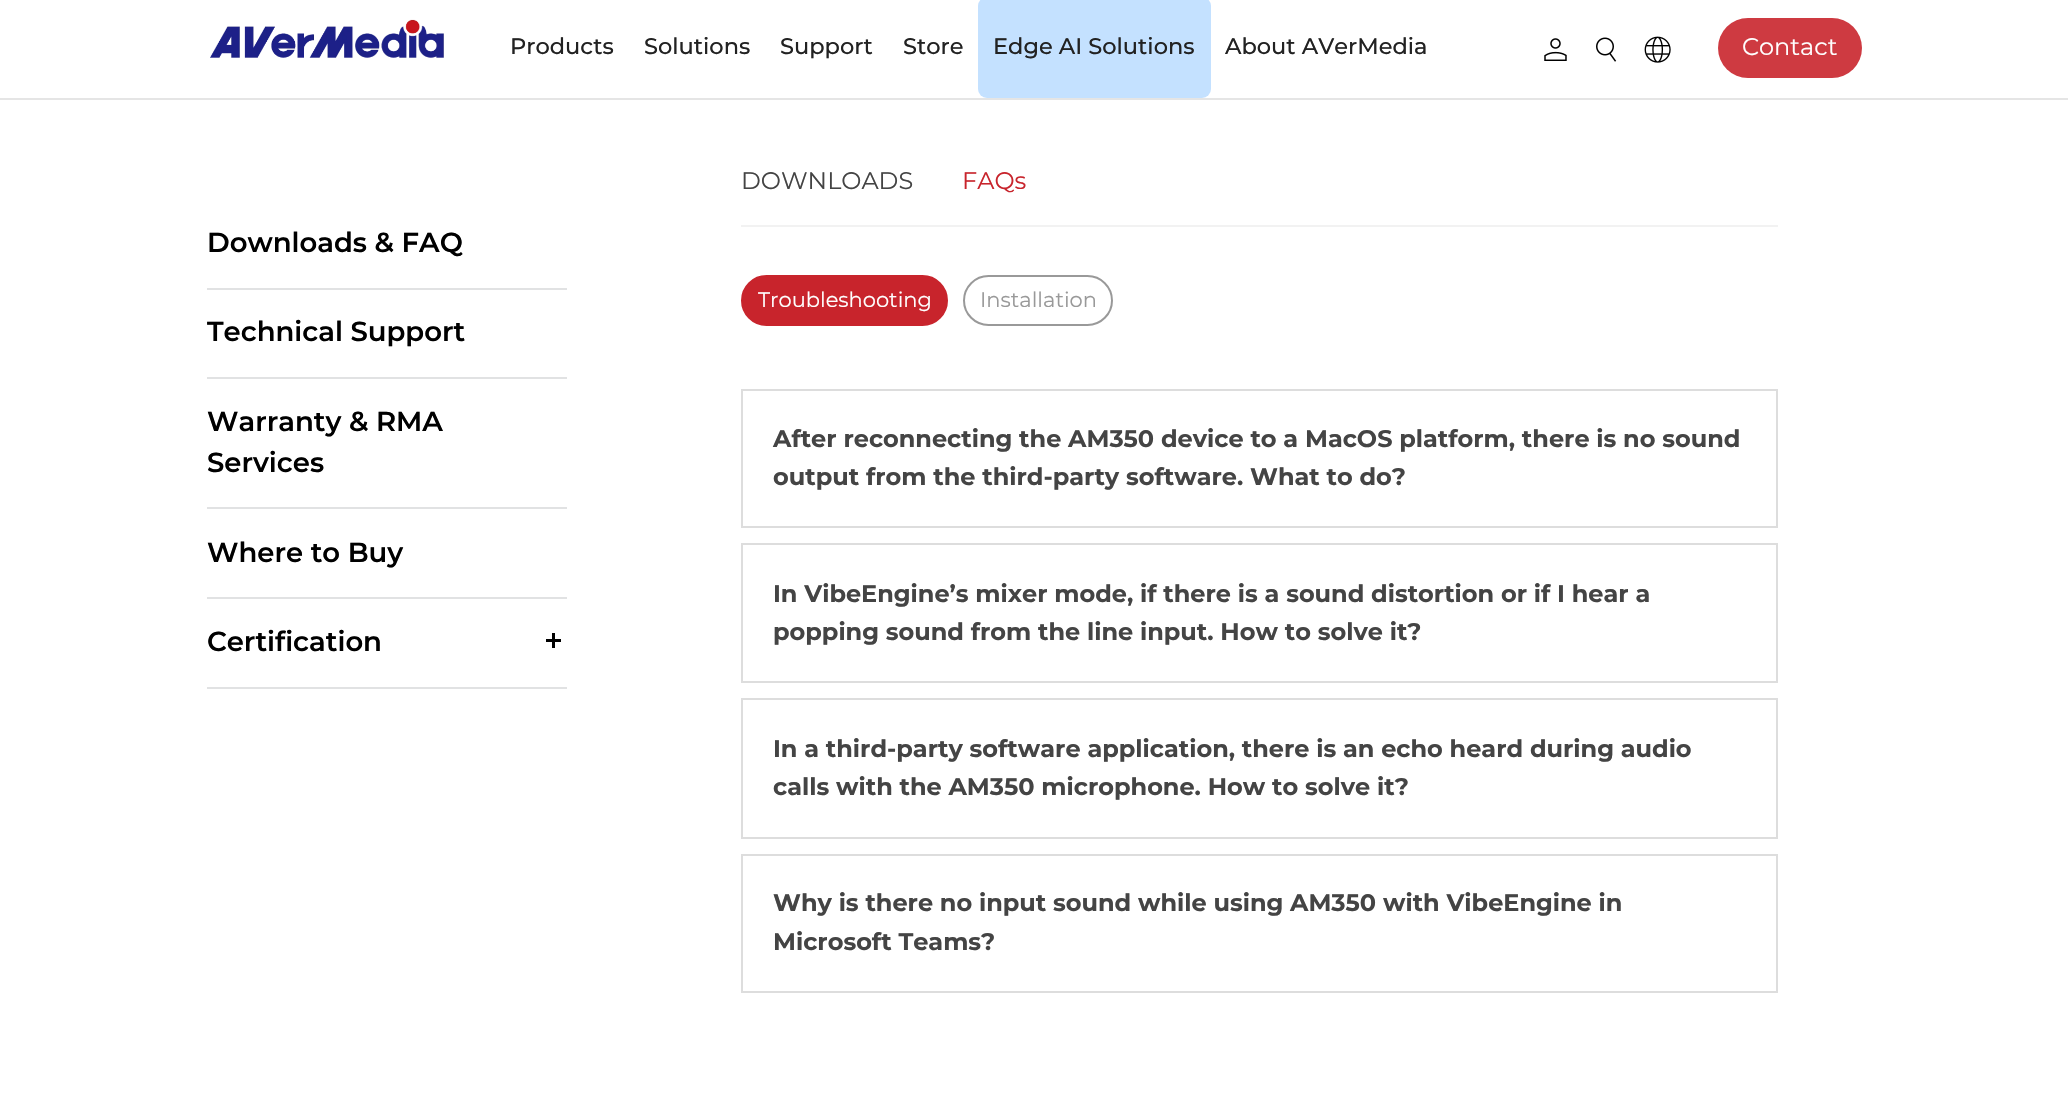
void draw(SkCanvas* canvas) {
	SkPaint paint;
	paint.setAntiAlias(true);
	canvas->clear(0xffffffff);
	paint.setColor(0x1a000000);
	canvas->drawRect(SkRect::MakeXYWH(0, 98, 2068, 2), paint);
	canvas->drawImageRect(SkImages::DeferredFromEncodedData(SkData::MakeFromFileName("img1.png")), SkRect::MakeXYWH(210, 19, 234, 39), SkSamplingOptions());
	SkFont f1(fontMgr->matchFamilyStyle("Montserrat", SkFontStyle(500, SkFontStyle::kNormal_Width, SkFontStyle::kUpright_Slant)), 22.5);
	f1.setSubpixel(true);
	paint.setColor(0xff222222);
	canvas->drawString("Products", 510, 54, f1, paint);
	canvas->drawString("Solutions", 644, 54, f1, paint);
	canvas->drawString("Support", 780, 54, f1, paint);
	canvas->drawString("Store", 903, 54, f1, paint);
	paint.setColor(0xffc4e1ff);
	canvas->drawRoundRect(SkRect::MakeXYWH(978, -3, 233, 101), 9, 9, paint);
	paint.setColor(0xff222222);
	canvas->drawString("Edge AI Solutions", 993, 54, f1, paint);
	canvas->drawString("About AVerMedia", 1225, 54, f1, paint);
	canvas->drawImageRect(SkImages::DeferredFromEncodedData(SkData::MakeFromFileName("img2.png")), SkRect::MakeXYWH(1544, 38, 23, 23), SkSamplingOptions());
	canvas->drawImageRect(SkImages::DeferredFromEncodedData(SkData::MakeFromFileName("img3.png")), SkRect::MakeXYWH(1596, 37, 21, 25), SkSamplingOptions());
	canvas->drawImageRect(SkImages::DeferredFromEncodedData(SkData::MakeFromFileName("img4.png")), SkRect::MakeXYWH(1644, 36, 27, 27), SkSamplingOptions());
	paint.setColor(0xffce3a41);
	canvas->drawRoundRect(SkRect::MakeXYWH(1718, 18, 144, 60), 30, 30, paint);
	SkFont f2(fontMgr->matchFamilyStyle("Montserrat", SkFontStyle::Normal()), 24);
	f2.setSubpixel(true);
	paint.setColor(0xffffffff);
	canvas->drawString("Contact", 1742, 55, f2, paint);
	paint.setColor(0xffe1e2e3);
	canvas->drawRect(SkRect::MakeXYWH(207, 288, 360, 2), paint);
	SkFont f3(fontMgr->matchFamilyStyle("Montserrat", SkFontStyle(600, SkFontStyle::kNormal_Width, SkFontStyle::kUpright_Slant)), 27.5);
	f3.setSubpixel(true);
	paint.setColor(0xff000000);
	canvas->drawString("Downloads & FAQ", 207, 252, f3, paint);
	paint.setColor(0xffe1e2e3);
	canvas->drawRect(SkRect::MakeXYWH(207, 377, 360, 2), paint);
	paint.setColor(0xff000000);
	canvas->drawString("Technical Support", 207, 341, f3, paint);
	paint.setColor(0xffe1e2e3);
	canvas->drawRect(SkRect::MakeXYWH(207, 507, 360, 2), paint);
	paint.setColor(0xff000000);
	canvas->drawString("Warranty & RMA", 207, 431, f3, paint);
	canvas->drawString("Services", 207, 472, f3, paint);
	paint.setColor(0xffe1e2e3);
	canvas->drawRect(SkRect::MakeXYWH(207, 597, 360, 2), paint);
	paint.setColor(0xff000000);
	canvas->drawString("Where to Buy", 207, 562, f3, paint);
	paint.setColor(0xffe1e2e3);
	canvas->drawRect(SkRect::MakeXYWH(207, 687, 360, 2), paint);
	paint.setColor(0xff000000);
	canvas->drawString("Certification", 207, 651, f3, paint);
	canvas->drawRect(SkRect::MakeXYWH(552, 633, 3, 15), paint);
	canvas->drawRect(SkRect::MakeXYWH(546, 639, 15, 3), paint);
	paint.setColor(0xff444444);
	canvas->drawString("DOWNLOADS", 741, 189, f2, paint);
	paint.setColor(0xffc8242c);
	canvas->drawString("FAQs", 962, 189, f2, paint);
	paint.setColor(0xfff2f2f2);
	canvas->drawRect(SkRect::MakeXYWH(741, 225, 1037, 2), paint);
	paint.setColor(0xffc8242c);
	canvas->drawRoundRect(SkRect::MakeXYWH(742, 276, 205, 49), 24.5, 24.5, paint);
	paint.setStroke(true);
	paint.setStrokeWidth(2);
	canvas->drawRoundRect(SkRect::MakeXYWH(742, 276, 205, 49), 24.5, 24.5, paint);
	SkFont f4(fontMgr->matchFamilyStyle("Montserrat", SkFontStyle::Normal()), 21);
	f4.setSubpixel(true);
	paint.setStroke(false);
	paint.setColor(0xffffffff);
	canvas->drawString("Troubleshooting", 758, 307, f4, paint);
	paint.setStroke(true);
	paint.setColor(0xff999999);
	canvas->drawRoundRect(SkRect::MakeXYWH(964, 276, 148, 49), 24.5, 24.5, paint);
	paint.setStroke(false);
	canvas->drawString("Installation", 980, 307, f4, paint);
	paint.setStroke(true);
	paint.setColor(0xffdddddd);
	canvas->drawRect(SkRect::MakeXYWH(742, 390, 1035, 137), paint);
	SkFont f5(fontMgr->matchFamilyStyle("Montserrat", SkFontStyle::Bold()), 24);
	f5.setSubpixel(true);
	paint.setStroke(false);
	paint.setColor(0xff444444);
	canvas->drawString("After reconnecting the AM350 device to a MacOS platform, there is no sound", 773, 447, f5, paint);
	canvas->drawString("output from the third-party software. What to do?", 773, 485, f5, paint);
	paint.setStroke(true);
	paint.setColor(0xffdddddd);
	canvas->drawRect(SkRect::MakeXYWH(742, 544, 1035, 138), paint);
	paint.setStroke(false);
	paint.setColor(0xff444444);
	canvas->drawString("In VibeEngine’s mixer mode, if there is a sound distortion or if I hear a", 773, 602, f5, paint);
	canvas->drawString("popping sound from the line input. How to solve it?", 773, 640, f5, paint);
	paint.setStroke(true);
	paint.setColor(0xffdddddd);
	canvas->drawRect(SkRect::MakeXYWH(742, 699, 1035, 139), paint);
	paint.setStroke(false);
	paint.setColor(0xff444444);
	canvas->drawString("In a third-party software application, there is an echo heard during audio", 773, 757, f5, paint);
	canvas->drawString("calls with the AM350 microphone. How to solve it?", 773, 795, f5, paint);
	paint.setStroke(true);
	paint.setColor(0xffdddddd);
	canvas->drawRect(SkRect::MakeXYWH(742, 855, 1035, 137), paint);
	paint.setStroke(false);
	paint.setColor(0xff444444);
	canvas->drawString("Why is there no input sound while using AM350 with VibeEngine in", 773, 911, f5, paint);
	canvas->drawString("Microsoft Teams?", 773, 950, f5, paint);
}
